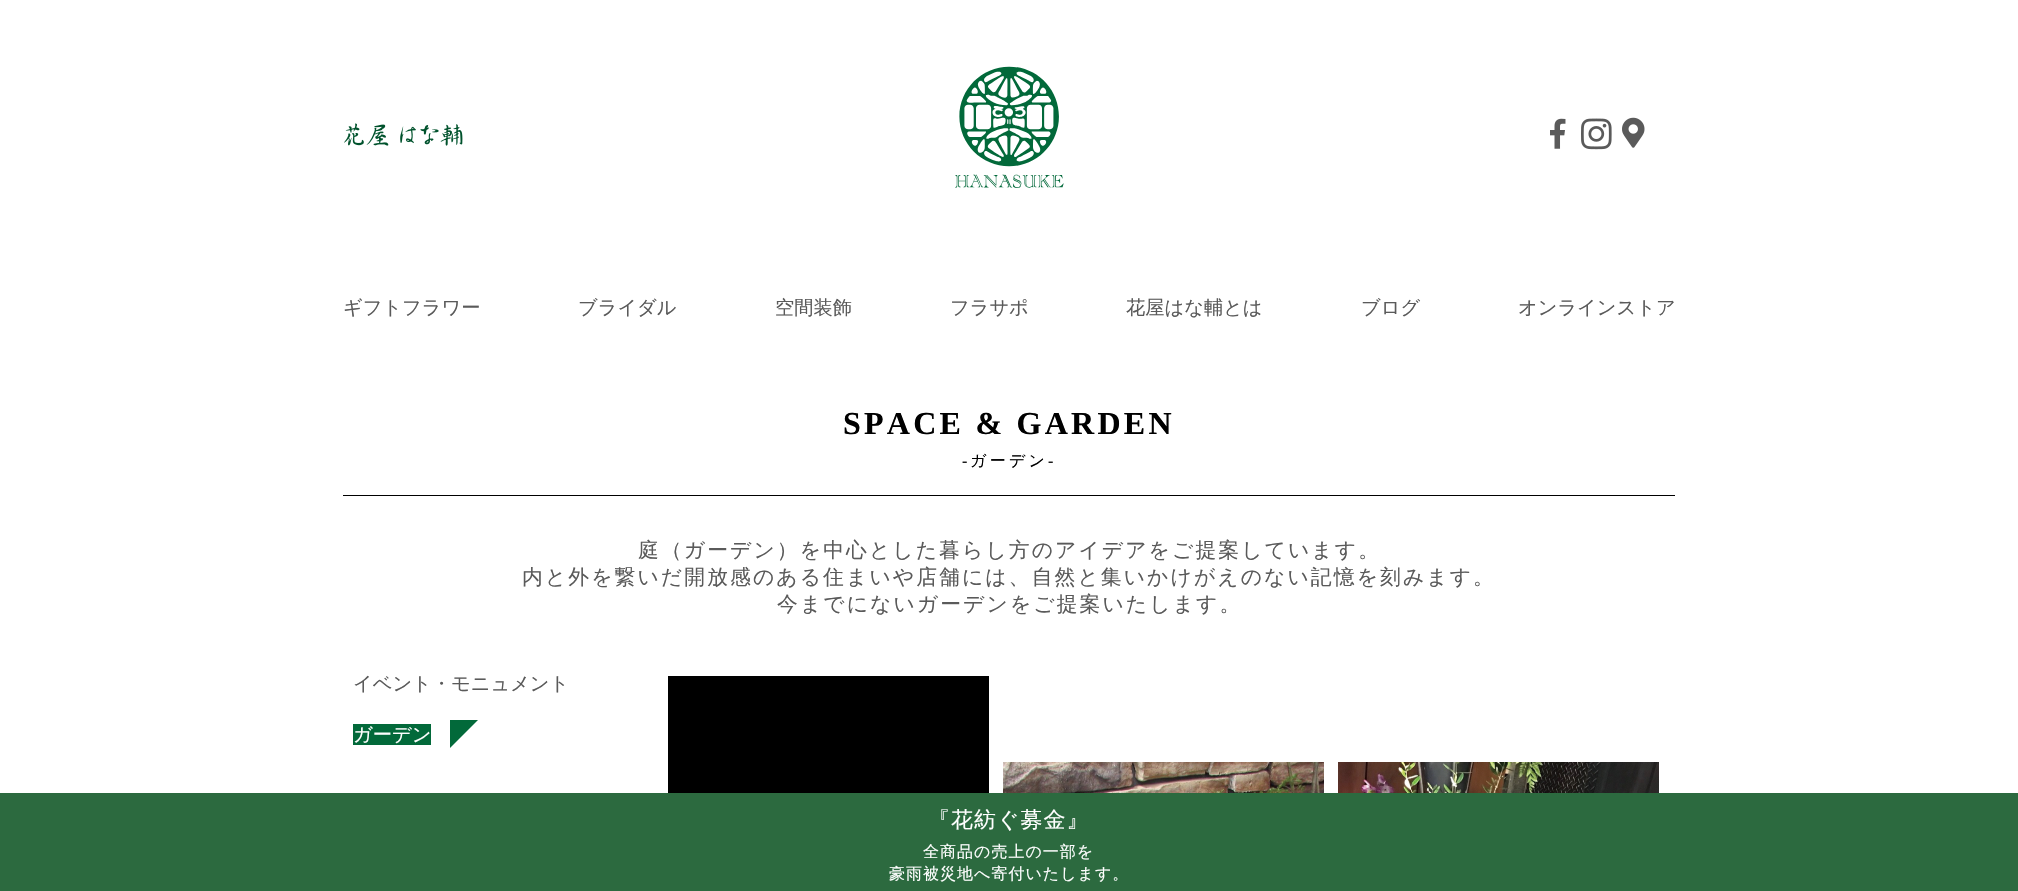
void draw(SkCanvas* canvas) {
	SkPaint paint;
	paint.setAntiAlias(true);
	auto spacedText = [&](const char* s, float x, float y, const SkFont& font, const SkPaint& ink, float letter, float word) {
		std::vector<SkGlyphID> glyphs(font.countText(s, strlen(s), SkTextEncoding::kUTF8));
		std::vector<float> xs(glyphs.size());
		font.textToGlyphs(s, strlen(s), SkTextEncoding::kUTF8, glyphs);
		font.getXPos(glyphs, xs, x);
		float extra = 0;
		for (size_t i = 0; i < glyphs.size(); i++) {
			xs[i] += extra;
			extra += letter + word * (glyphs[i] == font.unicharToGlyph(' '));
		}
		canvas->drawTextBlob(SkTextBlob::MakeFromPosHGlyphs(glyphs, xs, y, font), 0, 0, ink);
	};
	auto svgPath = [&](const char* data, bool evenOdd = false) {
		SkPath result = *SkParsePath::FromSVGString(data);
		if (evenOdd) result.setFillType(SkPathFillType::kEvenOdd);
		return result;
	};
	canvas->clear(0xffffffff);
	canvas->drawImageRect(SkImages::DeferredFromEncodedData(SkData::MakeFromFileName("img1.png")), SkRect::MakeXYWH(344, 123, 119, 23), SkSamplingOptions());
	canvas->drawImageRect(SkImages::DeferredFromEncodedData(SkData::MakeFromFileName("img2.png")), SkRect::MakeXYWH(955, 66, 109, 122), SkSamplingOptions());
	canvas->drawImageRect(SkImages::DeferredFromEncodedData(SkData::MakeFromFileName("img3.png")), SkRect::MakeXYWH(1550, 118, 16, 31), SkSamplingOptions());
	canvas->drawImageRect(SkImages::DeferredFromEncodedData(SkData::MakeFromFileName("img4.png")), SkRect::MakeXYWH(1581, 118, 31, 32), SkSamplingOptions());
	canvas->drawImageRect(SkImages::DeferredFromEncodedData(SkData::MakeFromFileName("img5.png")), SkRect::MakeXYWH(1622, 117, 23, 31), SkSamplingOptions());
	SkFont f1(fontMgr->matchFamilyStyle("WenQuanYi Zen Hei", SkFontStyle(500, SkFontStyle::kNormal_Width, SkFontStyle::kUpright_Slant)), 19.25);
	f1.setSubpixel(true);
	paint.setColor(0xff5a5a5a);
	canvas->drawString("ギフトフラワー", 343, 314, f1, paint);
	canvas->drawString("ブライダル", 578, 314, f1, paint);
	canvas->drawString("空間装飾", 775, 314, f1, paint);
	canvas->drawString("フラサポ", 950, 314, f1, paint);
	canvas->drawString("花屋はな輔とは", 1126, 314, f1, paint);
	canvas->drawString("ブログ", 1361, 314, f1, paint);
	canvas->drawString("オンラインストア", 1518, 314, f1, paint);
	paint.setColor(0xff000000);
	canvas->drawRect(SkRect::MakeXYWH(343, 495, 1332, 1), paint);
	SkFont f2(fontMgr->matchFamilyStyle("Liberation Serif", SkFontStyle::Bold()), 32);
	f2.setSubpixel(true);
	spacedText("SPACE & GARDEN", 843, 434, f2, paint, 3.25, 0);
	SkFont f3(fontMgr->matchFamilyStyle("Liberation Serif", SkFontStyle::Normal()), 16);
	f3.setSubpixel(true);
	spacedText("-", 962, 466, f3, paint, 3.25, 0);
	SkFont f4(fontMgr->matchFamilyStyle("WenQuanYi Zen Hei", SkFontStyle(500, SkFontStyle::kNormal_Width, SkFontStyle::kUpright_Slant)), 16);
	f4.setSubpixel(true);
	spacedText("ガーデン", 970, 466, f4, paint, 3.25, 0);
	spacedText("-", 1048, 466, f3, paint, 3.25, 0);
	SkFont f5(fontMgr->matchFamilyStyle("WenQuanYi Zen Hei", SkFontStyle(500, SkFontStyle::kNormal_Width, SkFontStyle::kUpright_Slant)), 20.8);
	f5.setSubpixel(true);
	paint.setColor(0xff5a5a5a);
	spacedText("庭（ガーデン）を中心とした暮らし方のアイデアをご提案しています。", 638, 557, f5, paint, 2.1, 0);
	spacedText("内と外を繋いだ開放感のある住まいや店舗には、自然と集いかけがえのない記憶を刻みます。", 522, 584, f5, paint, 2.1, 0);
	spacedText("今までにないガーデンをご提案いたします。", 777, 611, f5, paint, 2.1, 0);
	canvas->drawString("イベント・モニュメント", 353, 690, f1, paint);
	paint.setColor(0xff02693a);
	canvas->drawRect(SkRect::MakeXYWH(353, 724, 78, 21), paint);
	canvas->drawRect(SkRect::MakeXYWH(450, 720, 28, 28), paint);
	paint.setColor(0xffffffff);
	canvas->drawString("ガーデン", 353, 741, f1, paint);
	canvas->drawPath(svgPath("M478 748H450L478 720Z"), paint);
	canvas->drawImageRect(SkImages::DeferredFromEncodedData(SkData::MakeFromFileName("img6.png")), SkRect::MakeXYWH(668, 676, 321, 117), SkSamplingOptions());
	canvas->drawImageRect(SkImages::DeferredFromEncodedData(SkData::MakeFromFileName("img7.png")), SkRect::MakeXYWH(1003, 762, 321, 31), SkSamplingOptions());
	canvas->drawImageRect(SkImages::DeferredFromEncodedData(SkData::MakeFromFileName("img8.png")), SkRect::MakeXYWH(1338, 762, 321, 31), SkSamplingOptions());
	paint.setColor(0xff2c6a3f);
	canvas->drawRect(SkRect::MakeXYWH(0, 793, 2018, 98), paint);
	SkFont f6(fontMgr->matchFamilyStyle("WenQuanYi Zen Hei", SkFontStyle(500, SkFontStyle::kNormal_Width, SkFontStyle::kUpright_Slant)), 22);
	f6.setSubpixel(true);
	paint.setColor(0xffffffff);
	spacedText("『花紡ぐ募金』", 928, 827, f6, paint, 1, 0);
	spacedText("全商品の売上の一部を", 923, 857, f4, paint, 1, 0);
	spacedText("豪雨被災地へ寄付いたします。", 889, 879, f4, paint, 1, 0);
}
